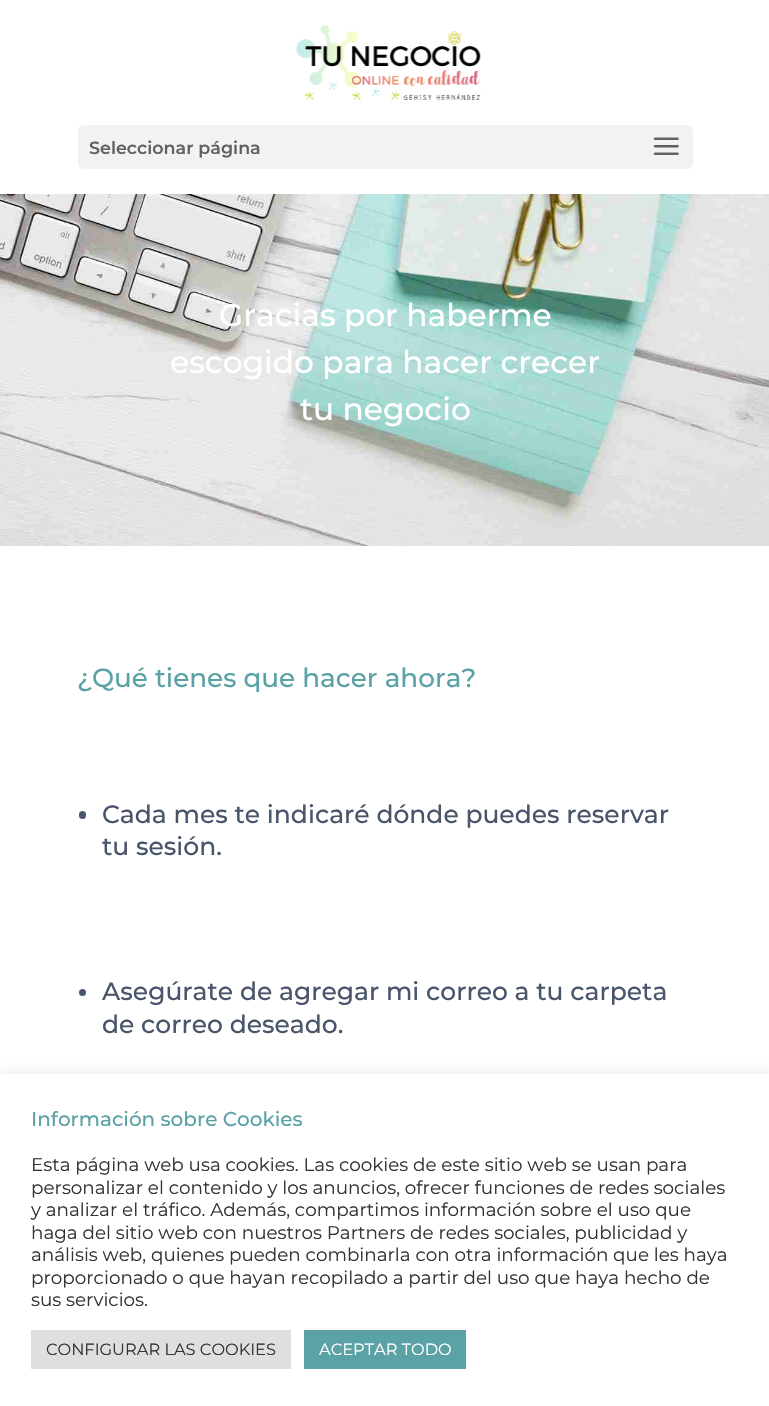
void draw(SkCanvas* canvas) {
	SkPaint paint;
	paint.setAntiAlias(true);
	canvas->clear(0xffffffff);
	canvas->drawImageRect(SkImages::DeferredFromEncodedData(SkData::MakeFromFileName("img1.png")), SkRect::MakeXYWH(296, 25, 185, 75), SkSamplingOptions());
	paint.setColor(0xfff2f2f2);
	canvas->drawRoundRect(SkRect::MakeXYWH(78, 125, 615, 44), 6, 6, paint);
	SkFont f1(fontMgr->matchFamilyStyle("Montserrat", SkFontStyle(600, SkFontStyle::kNormal_Width, SkFontStyle::kUpright_Slant)), 17.5);
	f1.setSubpixel(true);
	paint.setColor(0xff616161);
	canvas->drawString("Seleccionar página", 89, 154, f1, paint);
	canvas->drawImageRect(SkImages::DeferredFromEncodedData(SkData::MakeFromFileName("img2.png")), SkRect::MakeXYWH(653, 137, 26, 18), SkSamplingOptions());
	canvas->drawImageRect(SkImages::DeferredFromEncodedData(SkData::MakeFromFileName("img3.png")), SkRect::MakeXYWH(0, 194, 769, 352), SkSamplingOptions());
	SkFont f2(fontMgr->matchFamilyStyle("Montserrat", SkFontStyle(500, SkFontStyle::kNormal_Width, SkFontStyle::kUpright_Slant)), 31.25);
	f2.setSubpixel(true);
	paint.setColor(0xffffffff);
	canvas->drawString("Gracias por haberme", 219, 326, f2, paint);
	canvas->drawString("escogido para hacer crecer", 170, 373, f2, paint);
	canvas->drawString("tu negocio", 300, 420, f2, paint);
	SkFont f3(fontMgr->matchFamilyStyle("Montserrat", SkFontStyle(500, SkFontStyle::kNormal_Width, SkFontStyle::kUpright_Slant)), 26.25);
	f3.setSubpixel(true);
	paint.setColor(0xff5ba2a6);
	canvas->drawString("¿Qué tienes que hacer ahora?", 77, 687, f3, paint);
	paint.setColor(0xff49556b);
	canvas->drawRoundRect(SkRect::MakeXYWH(79, 811, 7, 8), 3.5, 3.5, paint);
	SkFont f4(fontMgr->matchFamilyStyle("Montserrat", SkFontStyle(500, SkFontStyle::kNormal_Width, SkFontStyle::kUpright_Slant)), 25);
	f4.setSubpixel(true);
	canvas->drawString("Cada mes te indicaré dónde puedes reservar", 102, 823, f4, paint);
	canvas->drawString("tu sesión.", 102, 855, f4, paint);
	canvas->drawCircle(82.5, 992.5, 3.5, paint);
	canvas->drawString("Asegúrate de agregar mi correo a tu carpeta", 102, 1000, f4, paint);
	canvas->drawString("de correo deseado.", 102, 1033, f4, paint);
	paint.setColor(0x4dacabab);
	paint.setMaskFilter(SkMaskFilter::MakeBlur(kNormal_SkBlurStyle, 6));
	canvas->drawRect(SkRect::MakeXYWH(0, 1073, 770, 332), paint);
	paint.setMaskFilter(nullptr);
	paint.setColor(0xffffffff);
	canvas->drawRect(SkRect::MakeXYWH(0, 1074, 769, 332), paint);
	SkFont f5(fontMgr->matchFamilyStyle("Montserrat", SkFontStyle(500, SkFontStyle::kNormal_Width, SkFontStyle::kUpright_Slant)), 20);
	f5.setSubpixel(true);
	paint.setColor(0xff5ba2a6);
	canvas->drawString("Información sobre Cookies", 31, 1126, f5, paint);
	SkFont f6(fontMgr->matchFamilyStyle("Montserrat", SkFontStyle::Normal()), 18.35);
	f6.setSubpixel(true);
	paint.setColor(0xff333333);
	canvas->drawString("Esta página web usa cookies. Las cookies de este sitio web se usan para", 31, 1171, f6, paint);
	canvas->drawString("personalizar el contenido y los anuncios, ofrecer funciones de redes sociales", 31, 1194, f6, paint);
	canvas->drawString("y analizar el tráfico. Además, compartimos información sobre el uso que", 31, 1216, f6, paint);
	canvas->drawString("haga del sitio web con nuestros Partners de redes sociales, publicidad y", 31, 1239, f6, paint);
	canvas->drawString("análisis web, quienes pueden combinarla con otra información que les haya", 31, 1261, f6, paint);
	canvas->drawString("proporcionado o que hayan recopilado a partir del uso que haya hecho de", 31, 1284, f6, paint);
	canvas->drawString("sus servicios.", 31, 1306, f6, paint);
	paint.setColor(0xffdedfe0);
	canvas->drawRect(SkRect::MakeXYWH(31, 1330, 260, 39), paint);
	SkFont f7(fontMgr->matchFamilyStyle("Montserrat", SkFontStyle::Normal()), 16.25);
	f7.setSubpixel(true);
	paint.setColor(0xff333333);
	canvas->drawString("CONFIGURAR LAS COOKIES", 46, 1355, f7, paint);
	paint.setColor(0xff5ba2a6);
	canvas->drawRect(SkRect::MakeXYWH(304, 1330, 162, 39), paint);
	paint.setColor(0xffffffff);
	canvas->drawString("ACEPTAR TODO", 319, 1355, f7, paint);
}
